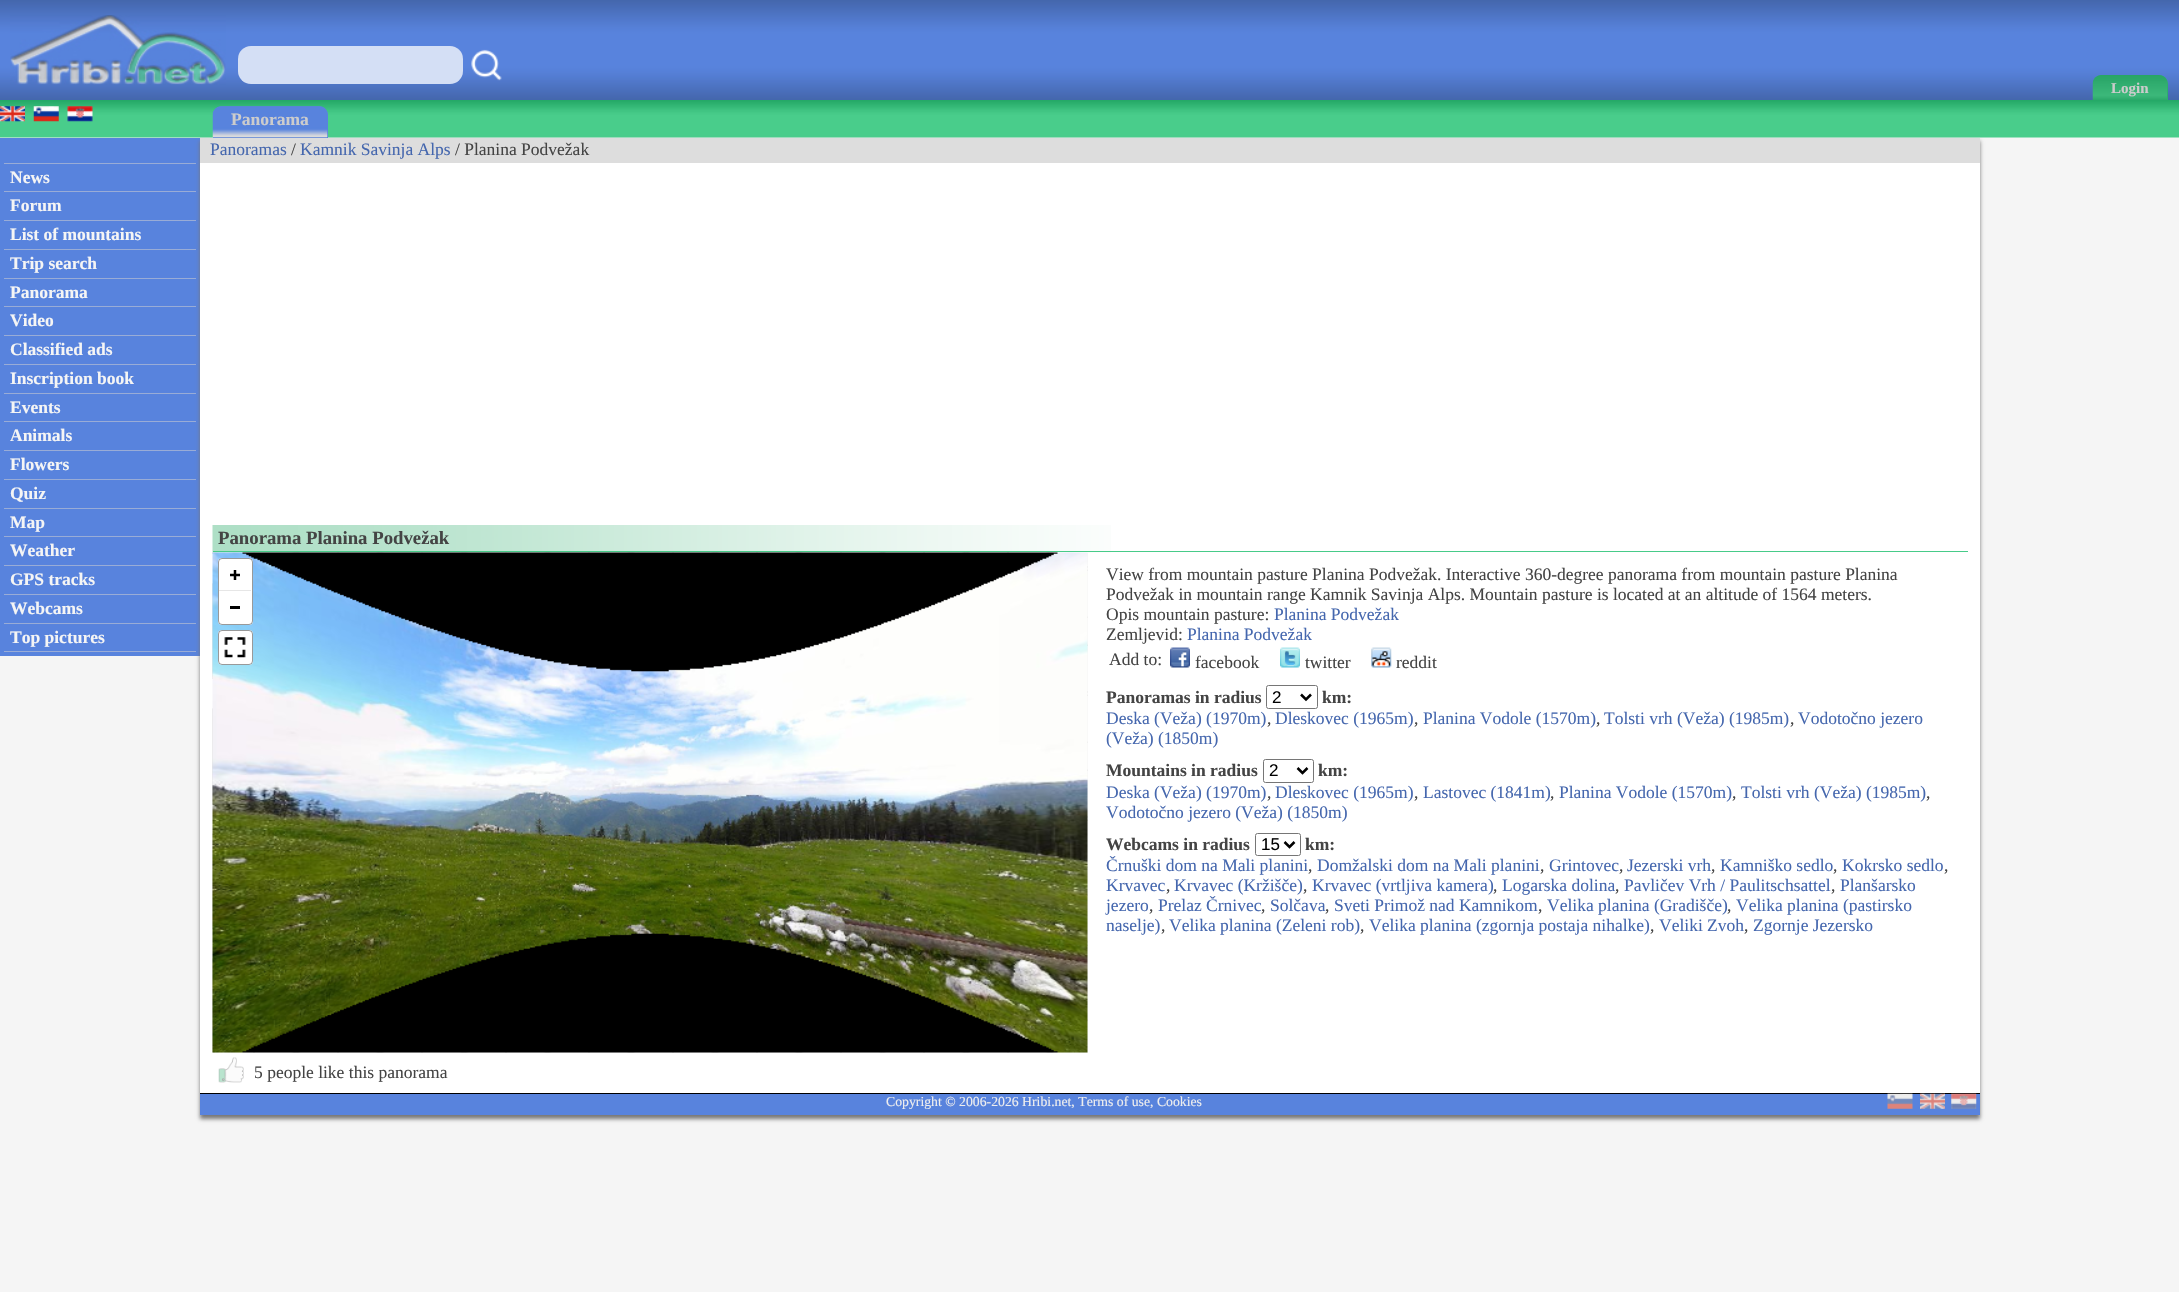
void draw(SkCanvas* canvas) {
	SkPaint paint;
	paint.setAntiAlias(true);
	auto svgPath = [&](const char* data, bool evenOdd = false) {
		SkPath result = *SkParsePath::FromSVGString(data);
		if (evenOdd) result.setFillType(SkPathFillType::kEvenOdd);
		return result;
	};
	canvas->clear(0xfff5f5f5);
	canvas->drawImageRect(SkImages::DeferredFromEncodedData(SkData::MakeFromFileName("img1.png")), SkRect::MakeXYWH(0, 0, 2179, 100), SkSamplingOptions());
	canvas->drawImageRect(SkImages::DeferredFromEncodedData(SkData::MakeFromFileName("img2.png")), SkRect::MakeXYWH(10, 15, 216, 70), SkSamplingOptions());
	paint.setColor(0xffd4dff5);
	canvas->drawRoundRect(SkRect::MakeXYWH(238, 46, 225, 38), 13, 13, paint);
	canvas->drawImageRect(SkImages::DeferredFromEncodedData(SkData::MakeFromFileName("img3.png")), SkRect::MakeXYWH(471, 49, 31, 32), SkSamplingOptions());
	paint.setColor(0xff2eac6d);
	canvas->drawPath(svgPath("M2102 75H2159C2164 75 2168 79 2168 84V100H2093V84C2093 79 2097 75 2102 75Z"), paint);
	canvas->drawImageRect(SkImages::DeferredFromEncodedData(SkData::MakeFromFileName("img4.png")), SkRect::MakeXYWH(2092, 75, 75, 25), SkSamplingOptions());
	SkFont f1(fontMgr->matchFamilyStyle("Liberation Serif", SkFontStyle::Bold()), 15);
	f1.setSubpixel(true);
	paint.setColor(0xffcccccc);
	canvas->drawString("Login", 2111, 93, f1, paint);
	canvas->drawImageRect(SkImages::DeferredFromEncodedData(SkData::MakeFromFileName("img5.png")), SkRect::MakeXYWH(0, 100, 2179, 38), SkSamplingOptions());
	canvas->drawImageRect(SkImages::DeferredFromEncodedData(SkData::MakeFromFileName("img6.png")), SkRect::MakeXYWH(0, 106, 25, 16), SkSamplingOptions());
	canvas->drawImageRect(SkImages::DeferredFromEncodedData(SkData::MakeFromFileName("img7.png")), SkRect::MakeXYWH(33, 106, 26, 16), SkSamplingOptions());
	canvas->drawImageRect(SkImages::DeferredFromEncodedData(SkData::MakeFromFileName("img8.png")), SkRect::MakeXYWH(67, 106, 26, 16), SkSamplingOptions());
	paint.setColor(0xff5883dd);
	canvas->drawPath(svgPath("M222 106H319C324 106 328 110 328 115V138H213V115C213 110 217 106 222 106Z"), paint);
	canvas->drawImageRect(SkImages::DeferredFromEncodedData(SkData::MakeFromFileName("img9.png")), SkRect::MakeXYWH(212, 106, 116, 32), SkSamplingOptions());
	SkFont f2(fontMgr->matchFamilyStyle("Liberation Serif", SkFontStyle::Bold()), 17.5);
	f2.setSubpixel(true);
	paint.setColor(0xffcccccc);
	canvas->drawString("Panorama", 231, 125, f2, paint);
	paint.setColor(0xff5883dd);
	canvas->drawRect(SkRect::MakeXYWH(0, 138, 200, 518), paint);
	paint.setColor(0xff99acd6);
	canvas->drawRect(SkRect::MakeXYWH(4, 163, 192, 1), paint);
	paint.setColor(0xfff5f5f5);
	canvas->drawString("News", 10, 183, f2, paint);
	paint.setColor(0xff99acd6);
	canvas->drawRect(SkRect::MakeXYWH(4, 191, 192, 1), paint);
	paint.setColor(0xfff5f5f5);
	canvas->drawString("Forum", 10, 211, f2, paint);
	paint.setColor(0xff99acd6);
	canvas->drawRect(SkRect::MakeXYWH(4, 220, 192, 1), paint);
	paint.setColor(0xfff5f5f5);
	canvas->drawString("List of mountains", 10, 240, f2, paint);
	paint.setColor(0xff99acd6);
	canvas->drawRect(SkRect::MakeXYWH(4, 249, 192, 1), paint);
	paint.setColor(0xfff5f5f5);
	canvas->drawString("Trip search", 10, 269, f2, paint);
	paint.setColor(0xff99acd6);
	canvas->drawRect(SkRect::MakeXYWH(4, 278, 192, 1), paint);
	paint.setColor(0xfff5f5f5);
	canvas->drawString("Panorama", 10, 298, f2, paint);
	paint.setColor(0xff99acd6);
	canvas->drawRect(SkRect::MakeXYWH(4, 306, 192, 1), paint);
	paint.setColor(0xfff5f5f5);
	canvas->drawString("Video", 10, 326, f2, paint);
	paint.setColor(0xff99acd6);
	canvas->drawRect(SkRect::MakeXYWH(4, 335, 192, 1), paint);
	paint.setColor(0xfff5f5f5);
	canvas->drawString("Classified ads", 10, 355, f2, paint);
	paint.setColor(0xff99acd6);
	canvas->drawRect(SkRect::MakeXYWH(4, 364, 192, 1), paint);
	paint.setColor(0xfff5f5f5);
	canvas->drawString("Inscription book", 10, 384, f2, paint);
	paint.setColor(0xff99acd6);
	canvas->drawRect(SkRect::MakeXYWH(4, 393, 192, 1), paint);
	paint.setColor(0xfff5f5f5);
	canvas->drawString("Events", 10, 413, f2, paint);
	paint.setColor(0xff99acd6);
	canvas->drawRect(SkRect::MakeXYWH(4, 421, 192, 1), paint);
	paint.setColor(0xfff5f5f5);
	canvas->drawString("Animals", 10, 441, f2, paint);
	paint.setColor(0xff99acd6);
	canvas->drawRect(SkRect::MakeXYWH(4, 450, 192, 1), paint);
	paint.setColor(0xfff5f5f5);
	canvas->drawString("Flowers", 10, 470, f2, paint);
	paint.setColor(0xff99acd6);
	canvas->drawRect(SkRect::MakeXYWH(4, 479, 192, 1), paint);
	paint.setColor(0xfff5f5f5);
	canvas->drawString("Quiz", 10, 499, f2, paint);
	paint.setColor(0xff99acd6);
	canvas->drawRect(SkRect::MakeXYWH(4, 508, 192, 1), paint);
	paint.setColor(0xfff5f5f5);
	canvas->drawString("Map", 10, 528, f2, paint);
	paint.setColor(0xff99acd6);
	canvas->drawRect(SkRect::MakeXYWH(4, 536, 192, 1), paint);
	paint.setColor(0xfff5f5f5);
	canvas->drawString("Weather", 10, 556, f2, paint);
	paint.setColor(0xff99acd6);
	canvas->drawRect(SkRect::MakeXYWH(4, 565, 192, 1), paint);
	paint.setColor(0xfff5f5f5);
	canvas->drawString("GPS tracks", 10, 585, f2, paint);
	paint.setColor(0xff99acd6);
	canvas->drawRect(SkRect::MakeXYWH(4, 594, 192, 1), paint);
	paint.setColor(0xfff5f5f5);
	canvas->drawString("Webcams", 10, 614, f2, paint);
	paint.setColor(0xff99acd6);
	canvas->drawRect(SkRect::MakeXYWH(4, 623, 192, 1), paint);
	paint.setColor(0xfff5f5f5);
	canvas->drawString("Top pictures", 10, 643, f2, paint);
	paint.setColor(0xff99acd6);
	canvas->drawRect(SkRect::MakeXYWH(4, 651, 192, 1), paint);
	paint.setColor(0xff777777);
	paint.setMaskFilter(SkMaskFilter::MakeBlur(kNormal_SkBlurStyle, 2));
	canvas->drawRect(SkRect::MakeXYWH(200, 141, 1780, 978), paint);
	paint.setMaskFilter(nullptr);
	paint.setColor(0xffffffff);
	canvas->drawRect(SkRect::MakeXYWH(200, 163, 1780, 930), paint);
	paint.setColor(0xffdddddd);
	canvas->drawRect(SkRect::MakeXYWH(200, 138, 1780, 25), paint);
	SkFont f3(fontMgr->matchFamilyStyle("Liberation Serif", SkFontStyle::Normal()), 17.5);
	f3.setSubpixel(true);
	paint.setColor(0xff4567ae);
	canvas->drawString("Panoramas", 210, 155, f3, paint);
	paint.setColor(0xff444444);
	canvas->drawString("/", 291, 155, f3, paint);
	paint.setColor(0xff4567ae);
	canvas->drawString("Kamnik Savinja Alps", 300, 155, f3, paint);
	paint.setColor(0xff444444);
	canvas->drawString("/ Planina Podvežak", 455, 155, f3, paint);
	canvas->drawImageRect(SkImages::DeferredFromEncodedData(SkData::MakeFromFileName("img10.png")), SkRect::MakeXYWH(212, 525, 899, 28), SkSamplingOptions());
	paint.setColor(0xff47cb89);
	canvas->drawRect(SkRect::MakeXYWH(213, 551, 1755, 1), paint);
	SkFont f4(fontMgr->matchFamilyStyle("Liberation Serif", SkFontStyle::Bold()), 18.75);
	f4.setSubpixel(true);
	paint.setColor(0xff444444);
	canvas->drawString("Panorama Planina Podvežak", 218, 544, f4, paint);
	canvas->drawString("View from mountain pasture Planina Podvežak. Interactive 360-degree panorama from mountain pasture Planina", 1106, 580, f3, paint);
	canvas->drawString("Podvežak in mountain range Kamnik Savinja Alps. Mountain pasture is located at an altitude of 1564 meters.", 1106, 600, f3, paint);
	canvas->drawString("Opis mountain pasture:", 1106, 620, f3, paint);
	paint.setColor(0xff4567ae);
	canvas->drawString("Planina Podvežak", 1274, 620, f3, paint);
	paint.setColor(0xff444444);
	canvas->drawString("Zemljevid:", 1106, 640, f3, paint);
	paint.setColor(0xff4567ae);
	canvas->drawString("Planina Podvežak", 1187, 640, f3, paint);
	paint.setColor(0xff444444);
	canvas->drawString("Add to:", 1109, 665, f3, paint);
	canvas->drawImageRect(SkImages::DeferredFromEncodedData(SkData::MakeFromFileName("img11.png")), SkRect::MakeXYWH(1170, 647, 20, 21), SkSamplingOptions());
	canvas->drawString("facebook", 1195, 668, f3, paint);
	canvas->drawImageRect(SkImages::DeferredFromEncodedData(SkData::MakeFromFileName("img12.png")), SkRect::MakeXYWH(1280, 647, 20, 21), SkSamplingOptions());
	canvas->drawString("twitter", 1305, 668, f3, paint);
	canvas->drawImageRect(SkImages::DeferredFromEncodedData(SkData::MakeFromFileName("img13.png")), SkRect::MakeXYWH(1371, 647, 21, 21), SkSamplingOptions());
	canvas->drawString("reddit", 1396, 668, f3, paint);
	canvas->drawString("Panoramas in radius", 1106, 703, f2, paint);
	paint.setStroke(true);
	paint.setStrokeWidth(1);
	paint.setColor(0xff767676);
	canvas->drawRoundRect(SkRect::MakeXYWH(1266.5, 685.5, 51, 23), 2, 2, paint);
	paint.setStrokeWidth(2.5);
	paint.setColor(0xff000000);
	canvas->drawPath(svgPath("M1301 694.5L1306 699.5L1311 694.5"), paint);
	SkFont f5(fontMgr->matchFamilyStyle("Liberation Sans", SkFontStyle::Normal()), 17);
	f5.setSubpixel(true);
	paint.setStroke(false);
	canvas->drawString("2", 1272, 703, f5, paint);
	paint.setColor(0xff444444);
	canvas->drawString("km:", 1322, 703, f2, paint);
	paint.setColor(0xff4567ae);
	canvas->drawString("Deska (Veža) (1970m)", 1106, 724, f3, paint);
	paint.setColor(0xff444444);
	canvas->drawString(",", 1267, 724, f3, paint);
	paint.setColor(0xff4567ae);
	canvas->drawString("Dleskovec (1965m)", 1275, 724, f3, paint);
	paint.setColor(0xff444444);
	canvas->drawString(",", 1414, 724, f3, paint);
	paint.setColor(0xff4567ae);
	canvas->drawString("Planina Vodole (1570m)", 1423, 724, f3, paint);
	paint.setColor(0xff444444);
	canvas->drawString(",", 1596, 724, f3, paint);
	paint.setColor(0xff4567ae);
	canvas->drawString("Tolsti vrh (Veža) (1985m)", 1604, 724, f3, paint);
	paint.setColor(0xff444444);
	canvas->drawString(",", 1790, 724, f3, paint);
	paint.setColor(0xff4567ae);
	canvas->drawString("Vodotočno jezero", 1798, 724, f3, paint);
	canvas->drawString("(Veža) (1850m)", 1106, 744, f3, paint);
	paint.setColor(0xff444444);
	canvas->drawString("Mountains in radius", 1106, 776, f2, paint);
	paint.setStroke(true);
	paint.setStrokeWidth(1);
	paint.setColor(0xff767676);
	canvas->drawRoundRect(SkRect::MakeXYWH(1263.5, 759.5, 50, 23), 2, 2, paint);
	paint.setStrokeWidth(2.5);
	paint.setColor(0xff000000);
	canvas->drawPath(svgPath("M1297.5 768L1302.5 773L1307.5 768"), paint);
	paint.setStroke(false);
	canvas->drawString("2", 1269, 776, f5, paint);
	paint.setColor(0xff444444);
	canvas->drawString("km:", 1318, 776, f2, paint);
	paint.setColor(0xff4567ae);
	canvas->drawString("Deska (Veža) (1970m)", 1106, 798, f3, paint);
	paint.setColor(0xff444444);
	canvas->drawString(",", 1267, 798, f3, paint);
	paint.setColor(0xff4567ae);
	canvas->drawString("Dleskovec (1965m)", 1275, 798, f3, paint);
	paint.setColor(0xff444444);
	canvas->drawString(",", 1414, 798, f3, paint);
	paint.setColor(0xff4567ae);
	canvas->drawString("Lastovec (1841m)", 1423, 798, f3, paint);
	paint.setColor(0xff444444);
	canvas->drawString(",", 1550, 798, f3, paint);
	paint.setColor(0xff4567ae);
	canvas->drawString("Planina Vodole (1570m)", 1559, 798, f3, paint);
	paint.setColor(0xff444444);
	canvas->drawString(",", 1732, 798, f3, paint);
	paint.setColor(0xff4567ae);
	canvas->drawString("Tolsti vrh (Veža) (1985m)", 1741, 798, f3, paint);
	paint.setColor(0xff444444);
	canvas->drawString(",", 1926, 798, f3, paint);
	paint.setColor(0xff4567ae);
	canvas->drawString("Vodotočno jezero (Veža) (1850m)", 1106, 818, f3, paint);
	paint.setColor(0xff444444);
	canvas->drawString("Webcams in radius", 1106, 850, f2, paint);
	paint.setStroke(true);
	paint.setStrokeWidth(1);
	paint.setColor(0xff767676);
	canvas->drawRoundRect(SkRect::MakeXYWH(1255.5, 833.5, 45, 22), 2, 2, paint);
	paint.setStrokeWidth(2.5);
	paint.setColor(0xff000000);
	canvas->drawPath(svgPath("M1284.5 842L1289.5 847L1294.5 842"), paint);
	paint.setStroke(false);
	canvas->drawString("15", 1261, 850, f5, paint);
	paint.setColor(0xff444444);
	canvas->drawString("km:", 1305, 850, f2, paint);
	paint.setColor(0xff4567ae);
	canvas->drawString("Črnuški dom na Mali planini", 1106, 871, f3, paint);
	paint.setColor(0xff444444);
	canvas->drawString(",", 1308, 871, f3, paint);
	paint.setColor(0xff4567ae);
	canvas->drawString("Domžalski dom na Mali planini", 1317, 871, f3, paint);
	paint.setColor(0xff444444);
	canvas->drawString(",", 1540, 871, f3, paint);
	paint.setColor(0xff4567ae);
	canvas->drawString("Grintovec", 1549, 871, f3, paint);
	paint.setColor(0xff444444);
	canvas->drawString(",", 1619, 871, f3, paint);
	paint.setColor(0xff4567ae);
	canvas->drawString("Jezerski vrh", 1627, 871, f3, paint);
	paint.setColor(0xff444444);
	canvas->drawString(",", 1711, 871, f3, paint);
	paint.setColor(0xff4567ae);
	canvas->drawString("Kamniško sedlo", 1720, 871, f3, paint);
	paint.setColor(0xff444444);
	canvas->drawString(",", 1833, 871, f3, paint);
	paint.setColor(0xff4567ae);
	canvas->drawString("Kokrsko sedlo", 1842, 871, f3, paint);
	paint.setColor(0xff444444);
	canvas->drawString(",", 1944, 871, f3, paint);
	paint.setColor(0xff4567ae);
	canvas->drawString("Krvavec", 1106, 891, f3, paint);
	paint.setColor(0xff444444);
	canvas->drawString(",", 1166, 891, f3, paint);
	paint.setColor(0xff4567ae);
	canvas->drawString("Krvavec (Kržišče)", 1174, 891, f3, paint);
	paint.setColor(0xff444444);
	canvas->drawString(",", 1303, 891, f3, paint);
	paint.setColor(0xff4567ae);
	canvas->drawString("Krvavec (vrtljiva kamera)", 1312, 891, f3, paint);
	paint.setColor(0xff444444);
	canvas->drawString(",", 1493, 891, f3, paint);
	paint.setColor(0xff4567ae);
	canvas->drawString("Logarska dolina", 1502, 891, f3, paint);
	paint.setColor(0xff444444);
	canvas->drawString(",", 1615, 891, f3, paint);
	paint.setColor(0xff4567ae);
	canvas->drawString("Pavličev Vrh / Paulitschsattel", 1624, 891, f3, paint);
	paint.setColor(0xff444444);
	canvas->drawString(",", 1831, 891, f3, paint);
	paint.setColor(0xff4567ae);
	canvas->drawString("Planšarsko", 1840, 891, f3, paint);
	canvas->drawString("jezero", 1106, 911, f3, paint);
	paint.setColor(0xff444444);
	canvas->drawString(",", 1149, 911, f3, paint);
	paint.setColor(0xff4567ae);
	canvas->drawString("Prelaz Črnivec", 1158, 911, f3, paint);
	paint.setColor(0xff444444);
	canvas->drawString(",", 1261, 911, f3, paint);
	paint.setColor(0xff4567ae);
	canvas->drawString("Solčava", 1270, 911, f3, paint);
	paint.setColor(0xff444444);
	canvas->drawString(",", 1325, 911, f3, paint);
	paint.setColor(0xff4567ae);
	canvas->drawString("Sveti Primož nad Kamnikom", 1334, 911, f3, paint);
	paint.setColor(0xff444444);
	canvas->drawString(",", 1538, 911, f3, paint);
	paint.setColor(0xff4567ae);
	canvas->drawString("Velika planina (Gradišče)", 1547, 911, f3, paint);
	paint.setColor(0xff444444);
	canvas->drawString(",", 1727, 911, f3, paint);
	paint.setColor(0xff4567ae);
	canvas->drawString("Velika planina (pastirsko", 1736, 911, f3, paint);
	canvas->drawString("naselje)", 1106, 931, f3, paint);
	paint.setColor(0xff444444);
	canvas->drawString(",", 1161, 931, f3, paint);
	paint.setColor(0xff4567ae);
	canvas->drawString("Velika planina (Zeleni rob)", 1169, 931, f3, paint);
	paint.setColor(0xff444444);
	canvas->drawString(",", 1360, 931, f3, paint);
	paint.setColor(0xff4567ae);
	canvas->drawString("Velika planina (zgornja postaja nihalke)", 1369, 931, f3, paint);
	paint.setColor(0xff444444);
	canvas->drawString(",", 1650, 931, f3, paint);
	paint.setColor(0xff4567ae);
	canvas->drawString("Veliki Zvoh", 1659, 931, f3, paint);
	paint.setColor(0xff444444);
	canvas->drawString(",", 1744, 931, f3, paint);
	paint.setColor(0xff4567ae);
	canvas->drawString("Zgornje Jezersko", 1753, 931, f3, paint);
	paint.setColor(0xfff4f4f4);
	canvas->drawRect(SkRect::MakeXYWH(213, 553, 875, 500), paint);
	canvas->drawImageRect(SkImages::DeferredFromEncodedData(SkData::MakeFromFileName("img14.png")), SkRect::MakeXYWH(212, 552, 876, 501), SkSamplingOptions());
	canvas->drawImageRect(SkImages::DeferredFromEncodedData(SkData::MakeFromFileName("img15.png")), SkRect::MakeXYWH(212, 552, 876, 501), SkSamplingOptions());
	paint.setColor(0xffffffff);
	canvas->drawRoundRect(SkRect::MakeXYWH(218, 558, 35, 67), 4, 4, paint);
	paint.setStroke(true);
	paint.setStrokeWidth(1);
	paint.setColor(0x66000000);
	canvas->drawRoundRect(SkRect::MakeXYWH(218.5, 558.5, 34, 66), 3.5, 3.5, paint);
	canvas->drawImageRect(SkImages::DeferredFromEncodedData(SkData::MakeFromFileName("img16.png")), SkRect::MakeXYWH(230, 570, 10, 10), SkSamplingOptions());
	paint.setStroke(false);
	paint.setColor(0xff000000);
	canvas->drawRect(SkRect::MakeXYWH(230, 606, 10, 3), paint);
	paint.setColor(0xffe6e6e6);
	canvas->drawRect(SkRect::MakeXYWH(219, 590, 32, 1), paint);
	paint.setColor(0xffffffff);
	canvas->drawRoundRect(SkRect::MakeXYWH(218, 630, 35, 35), 4, 4, paint);
	canvas->drawImageRect(SkImages::DeferredFromEncodedData(SkData::MakeFromFileName("img17.png")), SkRect::MakeXYWH(224, 637, 22, 21), SkSamplingOptions());
	paint.setStroke(true);
	paint.setColor(0x66000000);
	canvas->drawRoundRect(SkRect::MakeXYWH(218.5, 630.5, 34, 34), 3.5, 3.5, paint);
	canvas->drawImageRect(SkImages::DeferredFromEncodedData(SkData::MakeFromFileName("img18.png")), SkRect::MakeXYWH(218, 1057, 26, 26), SkSamplingOptions());
	paint.setStroke(false);
	paint.setColor(0xff444444);
	canvas->drawString("5 people like this panorama", 254, 1078, f3, paint);
	paint.setColor(0xff5883dd);
	canvas->drawRect(SkRect::MakeXYWH(200, 1094, 1780, 21), paint);
	paint.setColor(0xff000000);
	canvas->drawRect(SkRect::MakeXYWH(200, 1093, 1780, 1), paint);
	SkFont f6(fontMgr->matchFamilyStyle("Liberation Serif", SkFontStyle::Normal()), 13.75);
	f6.setSubpixel(true);
	paint.setColor(0xffeeeeee);
	canvas->drawString("Copyright © 2006-2026 Hribi.net, Terms of use, Cookies", 886, 1106, f6, paint);
	canvas->drawImageRect(SkImages::DeferredFromEncodedData(SkData::MakeFromFileName("img19.png")), SkRect::MakeXYWH(1887, 1093, 26, 16), SkSamplingOptions());
	canvas->drawImageRect(SkImages::DeferredFromEncodedData(SkData::MakeFromFileName("img20.png")), SkRect::MakeXYWH(1920, 1093, 25, 16), SkSamplingOptions());
	canvas->drawImageRect(SkImages::DeferredFromEncodedData(SkData::MakeFromFileName("img21.png")), SkRect::MakeXYWH(1951, 1093, 26, 16), SkSamplingOptions());
}
